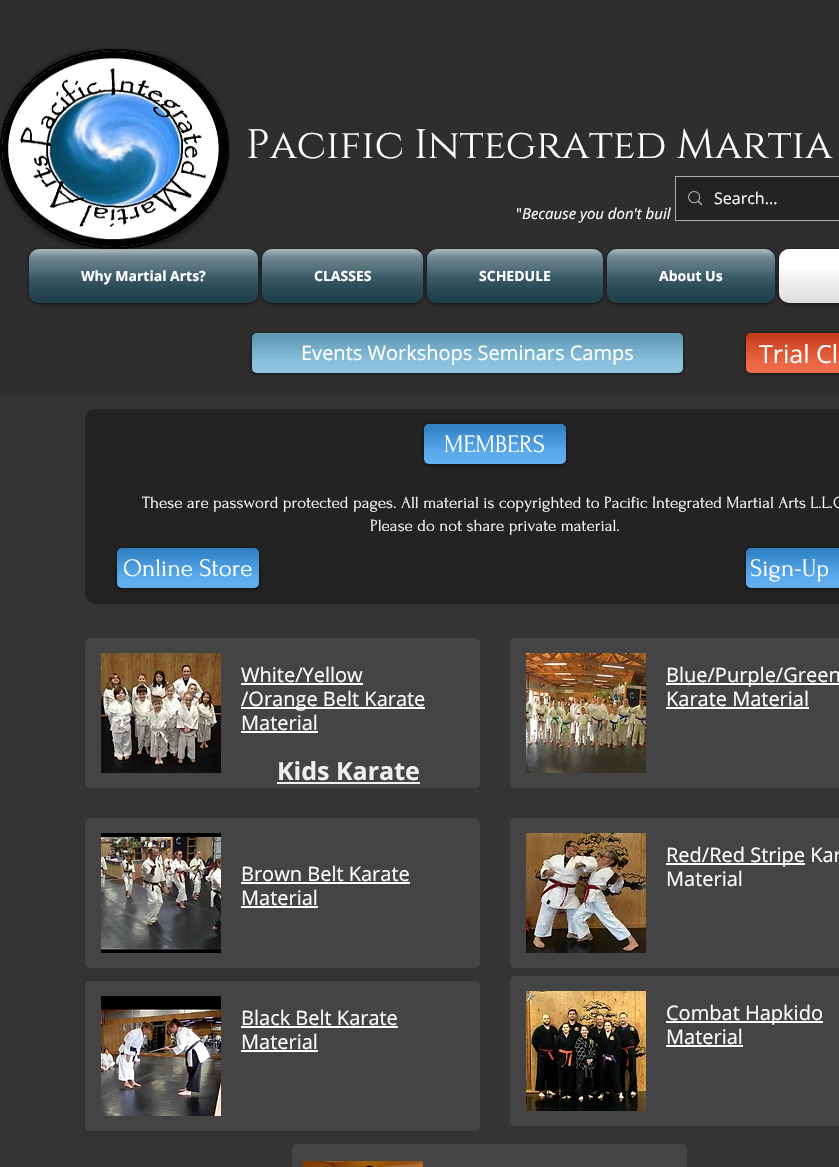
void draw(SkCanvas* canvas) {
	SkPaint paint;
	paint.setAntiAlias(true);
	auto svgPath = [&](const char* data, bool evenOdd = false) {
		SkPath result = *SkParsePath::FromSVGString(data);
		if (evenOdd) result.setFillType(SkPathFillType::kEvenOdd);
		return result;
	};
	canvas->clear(0xff2f2e2e);
	paint.setColor(0x66000000);
	paint.setMaskFilter(SkMaskFilter::MakeBlur(kNormal_SkBlurStyle, 2));
	canvas->drawRoundRect(SkRect::MakeXYWH(0, 50, 229, 200), 100, 100, paint);
	paint.setMaskFilter(nullptr);
	paint.setColor(0xff000000);
	canvas->drawOval(SkRect::MakeXYWH(0, 49, 229, 200), paint);
	paint.setStroke(true);
	paint.setStrokeWidth(2);
	canvas->drawPath(svgPath("M114.5 50C177 50 228 94.5 228 149C228 203.5 177 248 114.5 248C52 248 1 203.5 1 149C1 94.5 52 50 114.5 50Z"), paint);
	canvas->drawImageRect(SkImages::DeferredFromEncodedData(SkData::MakeFromFileName("img1.png")), SkRect::MakeXYWH(2, 51, 225, 196), SkSamplingOptions());
	SkFont f1(fontMgr->matchFamilyStyle("Cinzel", SkFontStyle::Normal()), 41);
	f1.setSubpixel(true);
	paint.setStroke(false);
	paint.setColor(0xffffffff);
	canvas->drawString("Pacific Integrated Martia", 246, 158, f1, paint);
	paint.setStroke(true);
	paint.setStrokeWidth(1);
	paint.setColor(0x99ffffff);
	canvas->drawRect(SkRect::MakeXYWH(675.5, 176.5, 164, 44), paint);
	paint.setStroke(false);
	paint.setColor(0xff232323);
	canvas->drawRect(SkRect::MakeXYWH(676, 177, 163, 43), paint);
	canvas->drawImageRect(SkImages::DeferredFromEncodedData(SkData::MakeFromFileName("img2.png")), SkRect::MakeXYWH(688, 191, 14, 15), SkSamplingOptions());
	SkFont f2(fontMgr->matchFamilyStyle("Open Sans", SkFontStyle::Normal()), 16);
	f2.setSubpixel(true);
	paint.setColor(0xffffffff);
	canvas->drawString("Search...", 714, 204, f2, paint);
	SkFont f3(fontMgr->matchFamilyStyle("Open Sans", SkFontStyle::Normal()), 15);
	f3.setSubpixel(true);
	canvas->drawString("\"", 516, 219, f3, paint);
	SkFont f4(fontMgr->matchFamilyStyle("Open Sans", SkFontStyle::Italic()), 15);
	f4.setSubpixel(true);
	canvas->drawString("Because you don't buil", 522, 219, f4, paint);
	canvas->save();
	canvas->clipPath(svgPath("M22 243H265V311H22ZM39 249H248C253.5 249 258 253.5 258 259V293C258 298.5 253.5 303 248 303H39C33.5 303 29 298.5 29 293V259C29 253.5 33.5 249 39 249Z", true), true);
	paint.setColor(0x99000000);
	paint.setMaskFilter(SkMaskFilter::MakeBlur(kNormal_SkBlurStyle, 2));
	canvas->drawRoundRect(SkRect::MakeXYWH(29, 250, 229, 54), 10, 10, paint);
	paint.setMaskFilter(nullptr);
	canvas->restore();
	paint.setColor(0x3d00a0d9);
	canvas->drawRoundRect(SkRect::MakeXYWH(29, 249, 229, 54), 10, 10, paint);
	canvas->drawImageRect(SkImages::DeferredFromEncodedData(SkData::MakeFromFileName("img3.png")), SkRect::MakeXYWH(29, 249, 229, 46), SkSamplingOptions());
	canvas->drawImageRect(SkImages::DeferredFromEncodedData(SkData::MakeFromFileName("img4.png")), SkRect::MakeXYWH(29, 273, 229, 30), SkSamplingOptions());
	SkFont f5(fontMgr->matchFamilyStyle("Open Sans", SkFontStyle::Bold()), 14);
	f5.setSubpixel(true);
	paint.setColor(0xffffffff);
	canvas->drawString("Why Martial Arts?", 81, 281, f5, paint);
	canvas->save();
	canvas->clipPath(svgPath("M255 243H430V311H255ZM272 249H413C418.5 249 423 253.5 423 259V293C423 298.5 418.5 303 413 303H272C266.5 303 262 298.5 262 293V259C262 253.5 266.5 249 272 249Z", true), true);
	paint.setColor(0x99000000);
	paint.setMaskFilter(SkMaskFilter::MakeBlur(kNormal_SkBlurStyle, 2));
	canvas->drawRoundRect(SkRect::MakeXYWH(262, 250, 161, 54), 10, 10, paint);
	paint.setMaskFilter(nullptr);
	canvas->restore();
	paint.setColor(0x3d00a0d9);
	canvas->drawRoundRect(SkRect::MakeXYWH(262, 249, 161, 54), 10, 10, paint);
	canvas->drawImageRect(SkImages::DeferredFromEncodedData(SkData::MakeFromFileName("img5.png")), SkRect::MakeXYWH(262, 249, 161, 46), SkSamplingOptions());
	canvas->drawImageRect(SkImages::DeferredFromEncodedData(SkData::MakeFromFileName("img6.png")), SkRect::MakeXYWH(262, 273, 161, 30), SkSamplingOptions());
	paint.setColor(0xffffffff);
	canvas->drawString("CLASSES", 314, 281, f5, paint);
	canvas->save();
	canvas->clipPath(svgPath("M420 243H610V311H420ZM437 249H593C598.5 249 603 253.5 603 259V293C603 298.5 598.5 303 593 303H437C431.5 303 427 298.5 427 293V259C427 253.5 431.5 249 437 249Z", true), true);
	paint.setColor(0x99000000);
	paint.setMaskFilter(SkMaskFilter::MakeBlur(kNormal_SkBlurStyle, 2));
	canvas->drawRoundRect(SkRect::MakeXYWH(427, 250, 176, 54), 10, 10, paint);
	paint.setMaskFilter(nullptr);
	canvas->restore();
	paint.setColor(0x3d00a0d9);
	canvas->drawRoundRect(SkRect::MakeXYWH(427, 249, 176, 54), 10, 10, paint);
	canvas->drawImageRect(SkImages::DeferredFromEncodedData(SkData::MakeFromFileName("img7.png")), SkRect::MakeXYWH(427, 249, 176, 46), SkSamplingOptions());
	canvas->drawImageRect(SkImages::DeferredFromEncodedData(SkData::MakeFromFileName("img8.png")), SkRect::MakeXYWH(427, 273, 176, 30), SkSamplingOptions());
	paint.setColor(0xffffffff);
	canvas->drawString("SCHEDULE", 479, 281, f5, paint);
	canvas->save();
	canvas->clipPath(svgPath("M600 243H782V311H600ZM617 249H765C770.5 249 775 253.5 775 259V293C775 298.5 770.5 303 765 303H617C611.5 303 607 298.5 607 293V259C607 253.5 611.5 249 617 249Z", true), true);
	paint.setColor(0x99000000);
	paint.setMaskFilter(SkMaskFilter::MakeBlur(kNormal_SkBlurStyle, 2));
	canvas->drawRoundRect(SkRect::MakeXYWH(607, 250, 168, 54), 10, 10, paint);
	paint.setMaskFilter(nullptr);
	canvas->restore();
	paint.setColor(0x3d00a0d9);
	canvas->drawRoundRect(SkRect::MakeXYWH(607, 249, 168, 54), 10, 10, paint);
	canvas->drawImageRect(SkImages::DeferredFromEncodedData(SkData::MakeFromFileName("img9.png")), SkRect::MakeXYWH(607, 249, 168, 46), SkSamplingOptions());
	canvas->drawImageRect(SkImages::DeferredFromEncodedData(SkData::MakeFromFileName("img10.png")), SkRect::MakeXYWH(607, 273, 168, 30), SkSamplingOptions());
	paint.setColor(0xffffffff);
	canvas->drawString("About Us", 659, 281, f5, paint);
	paint.setColor(0x99000000);
	paint.setMaskFilter(SkMaskFilter::MakeBlur(kNormal_SkBlurStyle, 2));
	canvas->drawRoundRect(SkRect::MakeXYWH(779, 250, 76, 54), 10, 10, paint);
	paint.setMaskFilter(nullptr);
	paint.setColor(0xffffffff);
	canvas->drawRoundRect(SkRect::MakeXYWH(779, 249, 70, 54), 10, 10, paint);
	canvas->drawImageRect(SkImages::DeferredFromEncodedData(SkData::MakeFromFileName("img11.png")), SkRect::MakeXYWH(779, 249, 10, 9), SkSamplingOptions());
	canvas->drawImageRect(SkImages::DeferredFromEncodedData(SkData::MakeFromFileName("img12.png")), SkRect::MakeXYWH(779, 269, 60, 34), SkSamplingOptions());
	paint.setColor(0x99000000);
	paint.setMaskFilter(SkMaskFilter::MakeBlur(kNormal_SkBlurStyle, 2));
	canvas->drawRoundRect(SkRect::MakeXYWH(252, 334, 431, 40), 5, 5, paint);
	paint.setMaskFilter(nullptr);
	paint.setColor(0xff74b6d7);
	canvas->drawRoundRect(SkRect::MakeXYWH(252, 333, 431, 40), 5, 5, paint);
	canvas->drawImageRect(SkImages::DeferredFromEncodedData(SkData::MakeFromFileName("img13.png")), SkRect::MakeXYWH(252, 333, 431, 26), SkSamplingOptions());
	canvas->drawImageRect(SkImages::DeferredFromEncodedData(SkData::MakeFromFileName("img14.png")), SkRect::MakeXYWH(252, 341, 431, 32), SkSamplingOptions());
	SkFont f6(fontMgr->matchFamilyStyle("Open Sans", SkFontStyle::Normal()), 20);
	f6.setSubpixel(true);
	paint.setColor(0xffffffff);
	canvas->drawString("Events Workshops Seminars Camps", 301, 360, f6, paint);
	paint.setColor(0x99000000);
	paint.setMaskFilter(SkMaskFilter::MakeBlur(kNormal_SkBlurStyle, 2));
	canvas->drawRoundRect(SkRect::MakeXYWH(746, 334, 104, 40), 5, 5, paint);
	paint.setMaskFilter(nullptr);
	paint.setColor(0xffe84a22);
	canvas->drawRoundRect(SkRect::MakeXYWH(746, 333, 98, 40), 5, 5, paint);
	canvas->drawImageRect(SkImages::DeferredFromEncodedData(SkData::MakeFromFileName("img15.png")), SkRect::MakeXYWH(746, 333, 93, 26), SkSamplingOptions());
	canvas->drawImageRect(SkImages::DeferredFromEncodedData(SkData::MakeFromFileName("img16.png")), SkRect::MakeXYWH(746, 340, 93, 33), SkSamplingOptions());
	SkFont f7(fontMgr->matchFamilyStyle("Open Sans", SkFontStyle::Normal()), 25);
	f7.setSubpixel(true);
	paint.setColor(0xffffffff);
	canvas->drawString("Trial Cl", 759, 363, f7, paint);
	paint.setColor(0xff343434);
	canvas->drawRect(SkRect::MakeXYWH(0, 396, 839, 771), paint);
	paint.setColor(0xff232323);
	canvas->drawRoundRect(SkRect::MakeXYWH(85, 409, 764, 195), 10, 10, paint);
	paint.setColor(0x99000000);
	paint.setMaskFilter(SkMaskFilter::MakeBlur(kNormal_SkBlurStyle, 2));
	canvas->drawRoundRect(SkRect::MakeXYWH(424, 425, 142, 40), 5, 5, paint);
	paint.setMaskFilter(nullptr);
	paint.setColor(0xff3d9be9);
	canvas->drawRoundRect(SkRect::MakeXYWH(424, 424, 142, 40), 5, 5, paint);
	canvas->drawImageRect(SkImages::DeferredFromEncodedData(SkData::MakeFromFileName("img17.png")), SkRect::MakeXYWH(424, 424, 142, 26), SkSamplingOptions());
	canvas->drawImageRect(SkImages::DeferredFromEncodedData(SkData::MakeFromFileName("img18.png")), SkRect::MakeXYWH(424, 431, 142, 33), SkSamplingOptions());
	SkFont f8(fontMgr->matchFamilyStyle("Forum", SkFontStyle::Normal()), 25);
	f8.setSubpixel(true);
	paint.setColor(0xffffffff);
	canvas->drawString("MEMBERS", 444, 452, f8, paint);
	SkFont f9(fontMgr->matchFamilyStyle("Forum", SkFontStyle::Normal()), 17);
	f9.setSubpixel(true);
	canvas->drawString("These are password protected pages. All material is copyrighted to Pacific Integrated Martial Arts L.L.C", 142, 508, f9, paint);
	canvas->drawString("Please do not share private material.", 370, 531, f9, paint);
	paint.setColor(0x99000000);
	paint.setMaskFilter(SkMaskFilter::MakeBlur(kNormal_SkBlurStyle, 2));
	canvas->drawRoundRect(SkRect::MakeXYWH(117, 549, 142, 40), 5, 5, paint);
	paint.setMaskFilter(nullptr);
	paint.setColor(0xff3d9be9);
	canvas->drawRoundRect(SkRect::MakeXYWH(117, 548, 142, 40), 5, 5, paint);
	canvas->drawImageRect(SkImages::DeferredFromEncodedData(SkData::MakeFromFileName("img19.png")), SkRect::MakeXYWH(117, 548, 142, 26), SkSamplingOptions());
	canvas->drawImageRect(SkImages::DeferredFromEncodedData(SkData::MakeFromFileName("img20.png")), SkRect::MakeXYWH(117, 555, 142, 33), SkSamplingOptions());
	paint.setColor(0xffffffff);
	canvas->drawString("Online Store", 123, 576, f8, paint);
	paint.setColor(0x99000000);
	paint.setMaskFilter(SkMaskFilter::MakeBlur(kNormal_SkBlurStyle, 2));
	canvas->drawRoundRect(SkRect::MakeXYWH(746, 549, 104, 40), 5, 5, paint);
	paint.setMaskFilter(nullptr);
	paint.setColor(0xff3d9be9);
	canvas->drawRoundRect(SkRect::MakeXYWH(746, 548, 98, 40), 5, 5, paint);
	canvas->drawImageRect(SkImages::DeferredFromEncodedData(SkData::MakeFromFileName("img21.png")), SkRect::MakeXYWH(746, 548, 93, 26), SkSamplingOptions());
	canvas->drawImageRect(SkImages::DeferredFromEncodedData(SkData::MakeFromFileName("img22.png")), SkRect::MakeXYWH(746, 555, 93, 33), SkSamplingOptions());
	paint.setColor(0xffffffff);
	canvas->drawString("Sign-Up", 750, 576, f8, paint);
	paint.setColor(0xff444444);
	canvas->drawRoundRect(SkRect::MakeXYWH(85, 638, 395, 150), 5, 5, paint);
	canvas->drawImageRect(SkImages::DeferredFromEncodedData(SkData::MakeFromFileName("img23.png")), SkRect::MakeXYWH(101, 653, 120, 120), SkSamplingOptions());
	paint.setColor(0xffffffff);
	canvas->drawString("White/Yellow", 241, 682, f6, paint);
	canvas->drawRect(SkRect::MakeXYWH(241, 683, 122, 2), paint);
	canvas->drawRect(SkRect::MakeXYWH(241, 707, 184, 2), paint);
	canvas->drawString("/Orange Belt Karate", 241, 706, f6, paint);
	canvas->drawString("Material", 241, 730, f6, paint);
	canvas->drawRect(SkRect::MakeXYWH(241, 731, 77, 2), paint);
	paint.setColor(0xff444444);
	canvas->drawRoundRect(SkRect::MakeXYWH(510, 638, 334, 150), 5, 5, paint);
	canvas->drawImageRect(SkImages::DeferredFromEncodedData(SkData::MakeFromFileName("img24.png")), SkRect::MakeXYWH(526, 653, 120, 120), SkSamplingOptions());
	paint.setColor(0xffffffff);
	canvas->drawRect(SkRect::MakeXYWH(666, 683, 173, 2), paint);
	canvas->drawString("Blue/Purple/Green", 666, 682, f6, paint);
	canvas->drawString("Karate Material", 666, 706, f6, paint);
	canvas->drawRect(SkRect::MakeXYWH(666, 707, 143, 2), paint);
	SkFont f10(fontMgr->matchFamilyStyle("Open Sans", SkFontStyle::Bold()), 25);
	f10.setSubpixel(true);
	paint.setColor(0xffefefef);
	canvas->drawString("Kids Karate", 277, 780, f10, paint);
	canvas->drawRect(SkRect::MakeXYWH(277, 782, 143, 2), paint);
	paint.setColor(0xff444444);
	canvas->drawRoundRect(SkRect::MakeXYWH(85, 818, 395, 150), 5, 5, paint);
	canvas->drawImageRect(SkImages::DeferredFromEncodedData(SkData::MakeFromFileName("img25.png")), SkRect::MakeXYWH(101, 833, 120, 120), SkSamplingOptions());
	paint.setColor(0xffffffff);
	canvas->drawString("Brown Belt Karate", 241, 881, f6, paint);
	canvas->drawRect(SkRect::MakeXYWH(241, 882, 169, 2), paint);
	canvas->drawString("Material", 241, 905, f6, paint);
	canvas->drawRect(SkRect::MakeXYWH(241, 906, 77, 2), paint);
	paint.setColor(0xff444444);
	canvas->drawRoundRect(SkRect::MakeXYWH(510, 818, 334, 150), 5, 5, paint);
	canvas->drawImageRect(SkImages::DeferredFromEncodedData(SkData::MakeFromFileName("img26.png")), SkRect::MakeXYWH(526, 833, 120, 120), SkSamplingOptions());
	paint.setColor(0xffffffff);
	canvas->drawRect(SkRect::MakeXYWH(666, 863, 139, 2), paint);
	canvas->drawString("Red/Red Stripe Kar", 666, 862, f6, paint);
	canvas->drawString("Material", 666, 886, f6, paint);
	paint.setColor(0xff444444);
	canvas->drawRoundRect(SkRect::MakeXYWH(85, 981, 395, 150), 5, 5, paint);
	canvas->drawImageRect(SkImages::DeferredFromEncodedData(SkData::MakeFromFileName("img27.png")), SkRect::MakeXYWH(101, 996, 120, 120), SkSamplingOptions());
	paint.setColor(0xffffffff);
	canvas->drawString("Black Belt Karate", 241, 1025, f6, paint);
	canvas->drawRect(SkRect::MakeXYWH(241, 1026, 157, 2), paint);
	canvas->drawString("Material", 241, 1049, f6, paint);
	canvas->drawRect(SkRect::MakeXYWH(241, 1050, 77, 2), paint);
	paint.setColor(0xff444444);
	canvas->drawRoundRect(SkRect::MakeXYWH(510, 976, 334, 150), 5, 5, paint);
	canvas->drawImageRect(SkImages::DeferredFromEncodedData(SkData::MakeFromFileName("img28.png")), SkRect::MakeXYWH(526, 991, 120, 120), SkSamplingOptions());
	paint.setColor(0xffffffff);
	canvas->drawRect(SkRect::MakeXYWH(666, 1021, 157, 2), paint);
	canvas->drawString("Combat Hapkido", 666, 1020, f6, paint);
	canvas->drawString("Material", 666, 1044, f6, paint);
	canvas->drawRect(SkRect::MakeXYWH(666, 1045, 77, 2), paint);
	paint.setColor(0xff444444);
	canvas->drawRoundRect(SkRect::MakeXYWH(292, 1144, 395, 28), 5, 5, paint);
	canvas->drawImageRect(SkImages::DeferredFromEncodedData(SkData::MakeFromFileName("img29.png")), SkRect::MakeXYWH(303, 1161, 120, 6), SkSamplingOptions());
}
